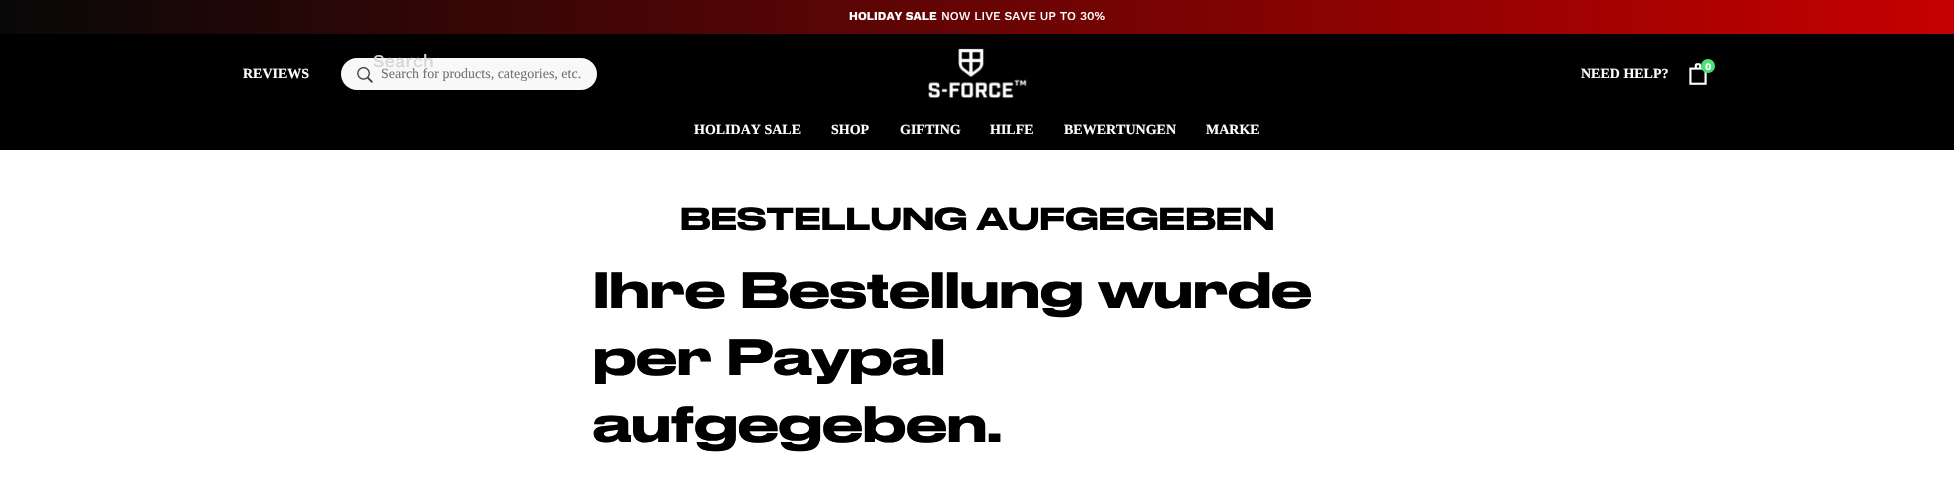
void draw(SkCanvas* canvas) {
	SkPaint paint;
	paint.setAntiAlias(true);
	canvas->clear(0xffffffff);
	{
		const SkColor colors[] = {0xff080808, 0xffc60000};
		const float stops[] = {0, 1};
		const SkPoint ends[] = {{0, 17}, {1954, 17}};
		paint.setShader(SkGradientShader::MakeLinear(ends, colors, stops, 2, SkTileMode::kClamp));
		paint.setAlpha(255);
	}
	canvas->drawRect(SkRect::MakeXYWH(0, 0, 1954, 34), paint);
	SkFont f1(fontMgr->matchFamilyStyle("Work Sans", SkFontStyle::Bold()), 12);
	f1.setSubpixel(true);
	paint.setShader(nullptr);
	paint.setColor(0xffffffff);
	canvas->drawString("HOLIDAY SALE", 849, 20, f1, paint);
	SkFont f2(fontMgr->matchFamilyStyle("Work Sans", SkFontStyle(500, SkFontStyle::kNormal_Width, SkFontStyle::kUpright_Slant)), 12);
	f2.setSubpixel(true);
	canvas->drawString("NOW LIVE SAVE UP TO 30%", 941, 20, f2, paint);
	paint.setColor(0xff000000);
	canvas->drawRect(SkRect::MakeXYWH(0, 34, 1954, 116), paint);
	paint.setColor(0xfff8f8f8);
	canvas->drawRoundRect(SkRect::MakeXYWH(341, 58, 256, 32), 16, 16, paint);
	SkFont f3(fontMgr->matchFamilyStyle("Work Sans", SkFontStyle(500, SkFontStyle::kNormal_Width, SkFontStyle::kUpright_Slant)), 18);
	f3.setSubpixel(true);
	paint.setColor(0xffd8d8d8);
	canvas->drawString("Search", 373, 67, f3, paint);
	SkFont f4(fontMgr->matchFamilyStyle("Liberation Serif", SkFontStyle::Bold()), 14);
	f4.setSubpixel(true);
	paint.setColor(0xffffffff);
	canvas->drawString("REVIEWS", 243, 78, f4, paint);
	canvas->drawImageRect(SkImages::DeferredFromEncodedData(SkData::MakeFromFileName("img1.png")), SkRect::MakeXYWH(357, 67, 16, 16), SkSamplingOptions());
	SkFont f5(fontMgr->matchFamilyStyle("Liberation Serif", SkFontStyle::Normal()), 14);
	f5.setSubpixel(true);
	paint.setColor(0xff76746f);
	canvas->drawString("Search for products, categories, etc.", 381, 78, f5, paint);
	canvas->drawImageRect(SkImages::DeferredFromEncodedData(SkData::MakeFromFileName("img2.png")), SkRect::MakeXYWH(928, 48, 99, 51), SkSamplingOptions());
	canvas->drawImageRect(SkImages::DeferredFromEncodedData(SkData::MakeFromFileName("img3.png")), SkRect::MakeXYWH(1689, 63, 18, 22), SkSamplingOptions());
	paint.setColor(0x1a000000);
	paint.setMaskFilter(SkMaskFilter::MakeBlur(kNormal_SkBlurStyle, 3));
	canvas->drawRoundRect(SkRect::MakeXYWH(1701, 59, 14, 14), 7, 7, paint);
	paint.setMaskFilter(nullptr);
	paint.setColor(0xff48e473);
	canvas->drawCircle(1708, 66, 7, paint);
	SkFont f6(fontMgr->matchFamilyStyle("Work Sans", SkFontStyle::Bold()), 10);
	f6.setSubpixel(true);
	paint.setColor(0xffffffff);
	canvas->drawString("0", 1705, 70, f6, paint);
	canvas->drawString("NEED HELP?", 1581, 78, f4, paint);
	canvas->drawString("HOLIDAY SALE", 694, 134, f4, paint);
	canvas->drawString("SHOP", 831, 134, f4, paint);
	canvas->drawString("GIFTING", 900, 134, f4, paint);
	canvas->drawString("HILFE", 990, 134, f4, paint);
	canvas->drawString("BEWERTUNGEN", 1064, 134, f4, paint);
	canvas->drawString("MARKE", 1206, 134, f4, paint);
	SkFont f7(fontMgr->matchFamilyStyle("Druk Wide", SkFontStyle(500, SkFontStyle::kNormal_Width, SkFontStyle::kUpright_Slant)), 30);
	f7.setSubpixel(true);
	paint.setColor(0xff000000);
	canvas->drawString("BESTELLUNG AUFGEGEBEN", 680, 230, f7, paint);
	SkFont f8(fontMgr->matchFamilyStyle("Druk Wide", SkFontStyle(500, SkFontStyle::kNormal_Width, SkFontStyle::kUpright_Slant)), 48);
	f8.setSubpixel(true);
	canvas->drawString("Ihre Bestellung wurde", 593, 308, f8, paint);
	canvas->drawString("per Paypal", 593, 375, f8, paint);
	canvas->drawString("aufgegeben.", 593, 442, f8, paint);
}
